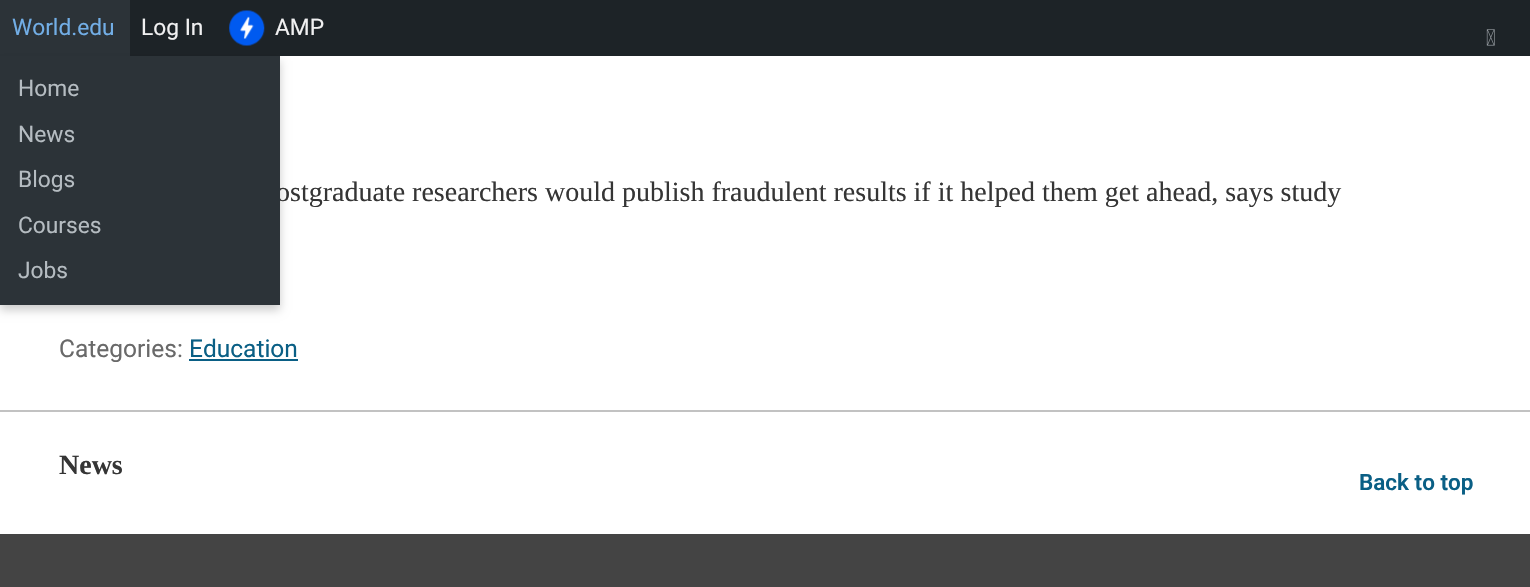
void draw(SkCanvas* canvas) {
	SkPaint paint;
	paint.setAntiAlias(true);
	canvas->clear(0xffffffff);
	paint.setColor(0xff1d2327);
	canvas->drawRect(SkRect::MakeXYWH(130, 0, 1400, 56), paint);
	paint.setColor(0xff2c3338);
	canvas->drawRect(SkRect::MakeXYWH(0, 0, 130, 56), paint);
	SkFont f1(fontMgr->matchFamilyStyle("Roboto", SkFontStyle::Normal()), 22.75);
	f1.setSubpixel(true);
	paint.setColor(0xff72aee6);
	canvas->drawString("World.edu", 12, 35, f1, paint);
	paint.setColor(0x33000000);
	paint.setMaskFilter(SkMaskFilter::MakeBlur(kNormal_SkBlurStyle, 4.5));
	canvas->drawRect(SkRect::MakeXYWH(0, 61, 280, 249), paint);
	paint.setMaskFilter(nullptr);
	SkFont f2(fontMgr->matchFamilyStyle("Liberation Serif", SkFontStyle::Normal()), 28);
	f2.setSubpixel(true);
	paint.setColor(0xff353535);
	canvas->drawString("ostgraduate researchers would publish fraudulent results if it helped them get ahead, says study", 276, 201, f2, paint);
	paint.setColor(0xff2c3338);
	canvas->drawRect(SkRect::MakeXYWH(0, 56, 280, 249), paint);
	paint.setColor(0xffb5bcc1);
	canvas->drawString("Home", 18, 96, f1, paint);
	canvas->drawString("News", 18, 142, f1, paint);
	canvas->drawString("Blogs", 18, 187, f1, paint);
	canvas->drawString("Courses", 18, 233, f1, paint);
	canvas->drawString("Jobs", 18, 278, f1, paint);
	paint.setColor(0xfff0f0f1);
	canvas->drawString("Log In", 141, 35, f1, paint);
	canvas->drawImageRect(SkImages::DeferredFromEncodedData(SkData::MakeFromFileName("img1.png")), SkRect::MakeXYWH(229, 10, 36, 36), SkSamplingOptions());
	canvas->drawString("AMP", 275, 35, f1, paint);
	canvas->drawImageRect(SkImages::DeferredFromEncodedData(SkData::MakeFromFileName("img2.png")), SkRect::MakeXYWH(1486, 29, 9, 17), SkSamplingOptions());
	SkFont f3(fontMgr->matchFamilyStyle("Roboto", SkFontStyle::Normal()), 24.5);
	f3.setSubpixel(true);
	paint.setColor(0xff696969);
	canvas->drawString("Categories:", 59, 357, f3, paint);
	paint.setColor(0xff0a5f85);
	canvas->drawString("Education", 189, 357, f3, paint);
	canvas->drawRect(SkRect::MakeXYWH(189, 359, 109, 2), paint);
	paint.setColor(0xffc2c2c2);
	canvas->drawRect(SkRect::MakeXYWH(0, 410, 1530, 2), paint);
	SkFont f4(fontMgr->matchFamilyStyle("Liberation Serif", SkFontStyle::Bold()), 28);
	f4.setSubpixel(true);
	paint.setColor(0xff353535);
	canvas->drawString("News", 59, 474, f4, paint);
	SkFont f5(fontMgr->matchFamilyStyle("Roboto", SkFontStyle(600, SkFontStyle::kNormal_Width, SkFontStyle::kUpright_Slant)), 22.5);
	f5.setSubpixel(true);
	paint.setColor(0xff0a5f85);
	canvas->drawString("Back to top", 1359, 490, f5, paint);
	paint.setColor(0xff444444);
	canvas->drawRect(SkRect::MakeXYWH(0, 534, 1530, 53), paint);
}
